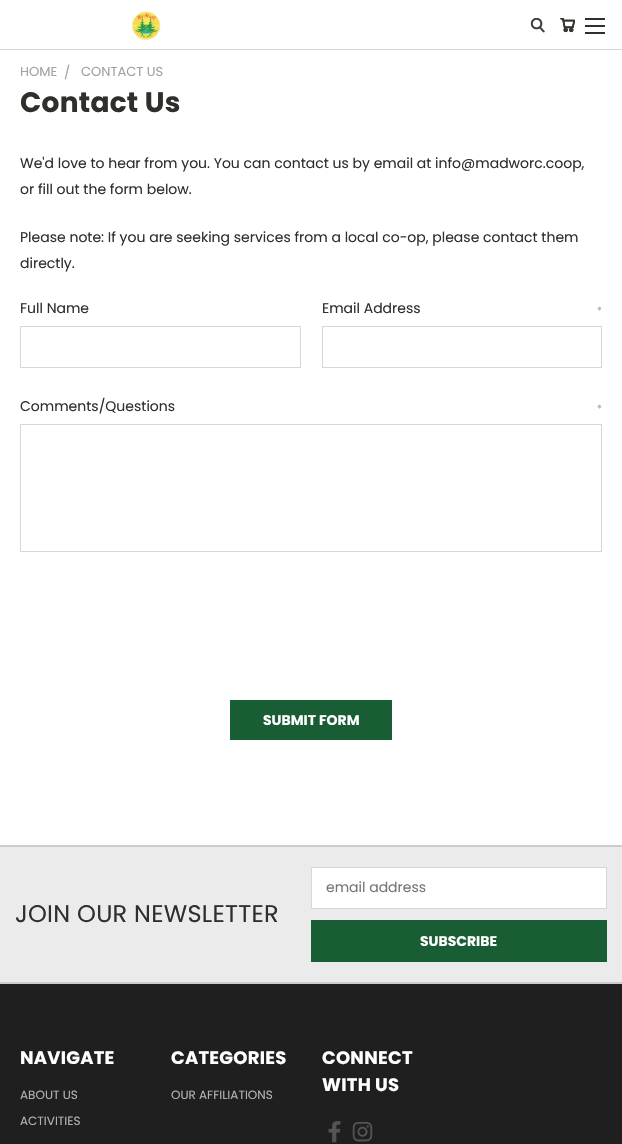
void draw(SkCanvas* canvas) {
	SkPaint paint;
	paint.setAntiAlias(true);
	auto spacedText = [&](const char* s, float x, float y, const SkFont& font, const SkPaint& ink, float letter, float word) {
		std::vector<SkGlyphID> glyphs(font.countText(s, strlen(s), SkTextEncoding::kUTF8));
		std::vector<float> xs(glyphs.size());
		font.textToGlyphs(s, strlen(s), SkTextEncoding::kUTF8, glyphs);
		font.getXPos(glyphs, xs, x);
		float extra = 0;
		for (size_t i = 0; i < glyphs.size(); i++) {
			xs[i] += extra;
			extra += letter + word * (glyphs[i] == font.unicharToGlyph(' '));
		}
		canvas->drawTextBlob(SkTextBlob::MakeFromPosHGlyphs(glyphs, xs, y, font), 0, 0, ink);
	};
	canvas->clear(0xffffffff);
	paint.setColor(0xffd7d7d7);
	canvas->drawRect(SkRect::MakeXYWH(0, 49, 622, 1), paint);
	canvas->drawImageRect(SkImages::DeferredFromEncodedData(SkData::MakeFromFileName("img1.png")), SkRect::MakeXYWH(131, 11, 30, 29), SkSamplingOptions());
	canvas->drawImageRect(SkImages::DeferredFromEncodedData(SkData::MakeFromFileName("img2.png")), SkRect::MakeXYWH(530, 18, 15, 15), SkSamplingOptions());
	canvas->drawImageRect(SkImages::DeferredFromEncodedData(SkData::MakeFromFileName("img3.png")), SkRect::MakeXYWH(560, 18, 15, 15), SkSamplingOptions());
	paint.setColor(0xff2f2f2b);
	canvas->drawRect(SkRect::MakeXYWH(585, 25, 20, 2), paint);
	canvas->drawRect(SkRect::MakeXYWH(585, 18, 20, 2), paint);
	canvas->drawRect(SkRect::MakeXYWH(585, 32, 20, 2), paint);
	SkFont f1(fontMgr->matchFamilyStyle("Poppins", SkFontStyle::Normal()), 13);
	f1.setSubpixel(true);
	paint.setColor(0xffa2a2a2);
	canvas->drawString("HOME", 20, 76, f1, paint);
	canvas->drawString("/", 64, 77, f1, paint);
	canvas->drawString("CONTACT US", 81, 76, f1, paint);
	SkFont f2(fontMgr->matchFamilyStyle("Poppins", SkFontStyle::Bold()), 28);
	f2.setSubpixel(true);
	paint.setColor(0xff2f2f2b);
	spacedText("Contact Us", 20, 112, f2, paint, 0.25, 0);
	SkFont f3(fontMgr->matchFamilyStyle("Poppins", SkFontStyle::Normal()), 14);
	f3.setSubpixel(true);
	canvas->drawString("We'd love to hear from you. You can contact us by email at info@madworc.coop,", 20, 168, f3, paint);
	canvas->drawString("or fill out the form below.", 20, 194, f3, paint);
	canvas->drawString("Please note: If you are seeking services from a local co-op, please contact them", 20, 242, f3, paint);
	canvas->drawString("directly.", 20, 268, f3, paint);
	canvas->drawString("Full Name", 20, 313, f3, paint);
	paint.setStroke(true);
	paint.setStrokeWidth(1);
	paint.setColor(0xffd7d7d7);
	canvas->drawRect(SkRect::MakeXYWH(20.5, 326.5, 280, 41), paint);
	paint.setStroke(false);
	paint.setColor(0xff2f2f2b);
	canvas->drawString("Email Address", 322, 313, f3, paint);
	SkFont f4(fontMgr->matchFamilyStyle("Poppins", SkFontStyle::Normal()), 10);
	f4.setSubpixel(true);
	paint.setColor(0xffa2a2a2);
	canvas->drawString("*", 597, 314, f4, paint);
	paint.setStroke(true);
	paint.setColor(0xffd7d7d7);
	canvas->drawRect(SkRect::MakeXYWH(322.5, 326.5, 279, 41), paint);
	paint.setStroke(false);
	paint.setColor(0xff2f2f2b);
	canvas->drawString("Comments/Questions", 20, 411, f3, paint);
	paint.setColor(0xffa2a2a2);
	canvas->drawString("*", 597, 412, f4, paint);
	paint.setStroke(true);
	paint.setColor(0xffd7d7d7);
	canvas->drawRect(SkRect::MakeXYWH(20.5, 424.5, 581, 127), paint);
	paint.setStroke(false);
	paint.setColor(0xff185d34);
	canvas->drawRect(SkRect::MakeXYWH(230, 700, 162, 40), paint);
	SkFont f5(fontMgr->matchFamilyStyle("Poppins", SkFontStyle::Bold()), 14);
	f5.setSubpixel(true);
	paint.setColor(0xffffffff);
	canvas->drawString("SUBMIT FORM", 263, 725, f5, paint);
	paint.setColor(0xffebebeb);
	canvas->drawRect(SkRect::MakeXYWH(0, 847, 622, 135), paint);
	paint.setColor(0xffcdcccc);
	canvas->drawRect(SkRect::MakeXYWH(0, 845, 622, 2), paint);
	SkFont f6(fontMgr->matchFamilyStyle("Poppins", SkFontStyle::Normal()), 24);
	f6.setSubpixel(true);
	paint.setColor(0xff2f2f2b);
	spacedText("JOIN OUR NEWSLETTER", 15, 922, f6, paint, 0.25, 0);
	paint.setColor(0xffffffff);
	canvas->drawRect(SkRect::MakeXYWH(311.5, 867.5, 295, 41), paint);
	paint.setStroke(true);
	paint.setColor(0xffd7d7d7);
	canvas->drawRect(SkRect::MakeXYWH(311.5, 867.5, 295, 41), paint);
	paint.setStroke(false);
	paint.setColor(0xff757575);
	canvas->drawString("email address", 326, 892, f3, paint);
	paint.setColor(0xff185d34);
	canvas->drawRect(SkRect::MakeXYWH(311, 920, 296, 42), paint);
	paint.setColor(0xffffffff);
	canvas->drawString("SUBSCRIBE", 420, 946, f5, paint);
	paint.setColor(0xff1f1f1f);
	canvas->drawRect(SkRect::MakeXYWH(0, 984, 622, 160), paint);
	paint.setColor(0xffcdcccc);
	canvas->drawRect(SkRect::MakeXYWH(0, 982, 622, 2), paint);
	SkFont f7(fontMgr->matchFamilyStyle("Poppins", SkFontStyle::Bold()), 18);
	f7.setSubpixel(true);
	paint.setColor(0xffffffff);
	spacedText("NAVIGATE", 20, 1064, f7, paint, 0.25, 0);
	SkFont f8(fontMgr->matchFamilyStyle("Poppins", SkFontStyle::Normal()), 12);
	f8.setSubpixel(true);
	paint.setColor(0xffb2b2b2);
	canvas->drawString("ABOUT US", 20, 1099, f8, paint);
	canvas->drawString("ACTIVITIES", 20, 1125, f8, paint);
	paint.setColor(0xffffffff);
	spacedText("CATEGORIES", 171, 1064, f7, paint, 0.25, 0);
	paint.setColor(0xffb2b2b2);
	canvas->drawString("OUR AFFILIATIONS", 171, 1099, f8, paint);
	paint.setColor(0xffffffff);
	spacedText("CONNECT", 322, 1064, f7, paint, 0.25, 0);
	spacedText("WITH US", 322, 1091, f7, paint, 0.25, 0);
	canvas->drawImageRect(SkImages::DeferredFromEncodedData(SkData::MakeFromFileName("img4.png")), SkRect::MakeXYWH(328, 1121, 13, 22), SkSamplingOptions());
	canvas->drawImageRect(SkImages::DeferredFromEncodedData(SkData::MakeFromFileName("img5.png")), SkRect::MakeXYWH(352, 1121, 21, 21), SkSamplingOptions());
}
